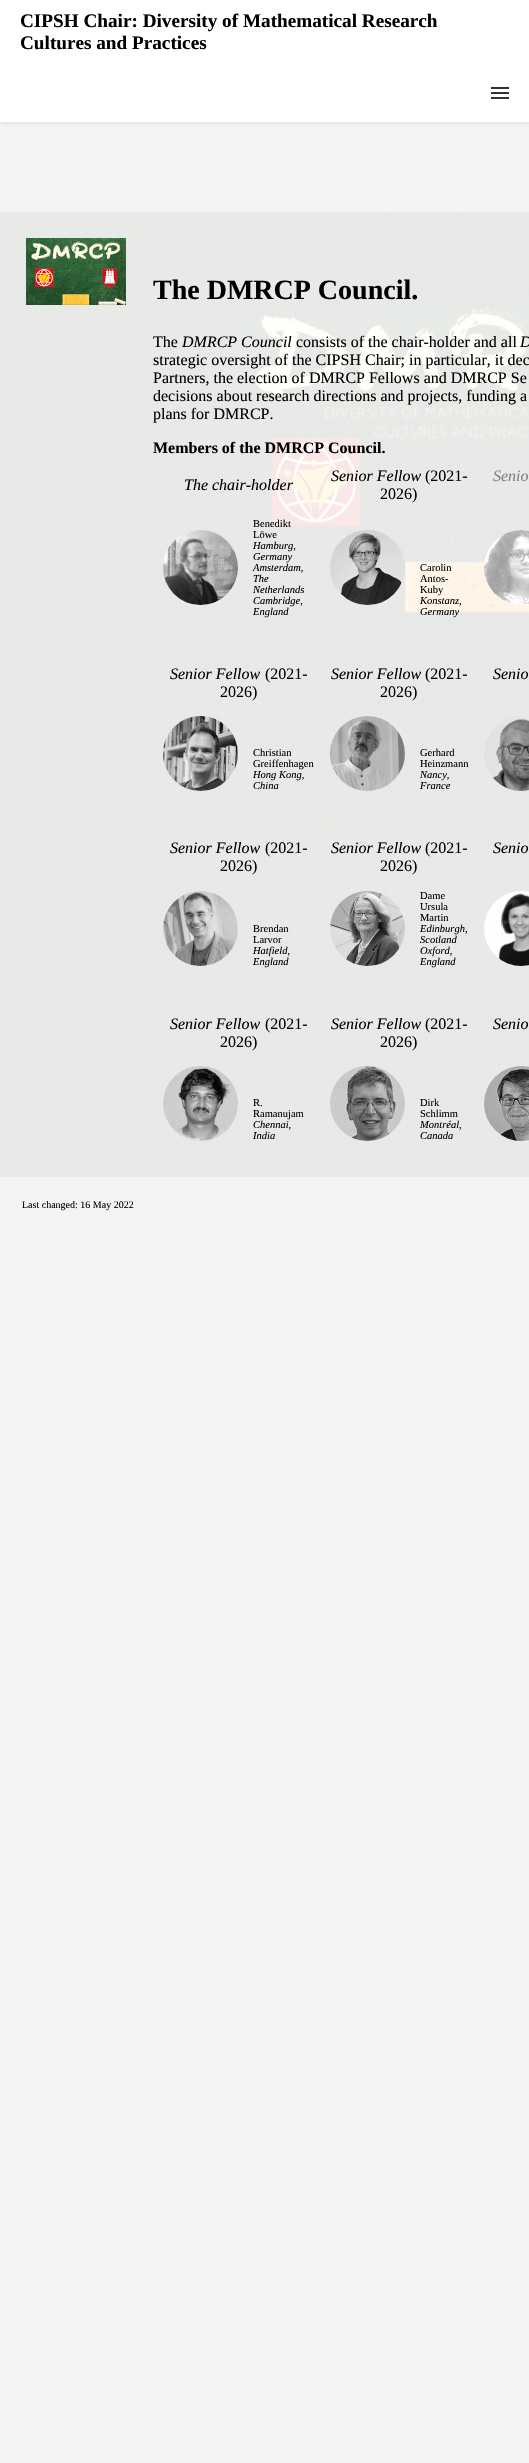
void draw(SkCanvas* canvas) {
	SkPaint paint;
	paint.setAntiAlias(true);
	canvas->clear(0xfff4f4f4);
	paint.setColor(0x1a000000);
	paint.setMaskFilter(SkMaskFilter::MakeBlur(kNormal_SkBlurStyle, 2));
	canvas->drawRect(SkRect::MakeXYWH(1, 1, 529, 122), paint);
	paint.setMaskFilter(nullptr);
	paint.setColor(0xffffffff);
	canvas->drawRect(SkRect::MakeXYWH(0, 0, 529, 122), paint);
	SkFont f1(fontMgr->matchFamilyStyle("Liberation Serif", SkFontStyle::Bold()), 19.2);
	f1.setSubpixel(true);
	paint.setColor(0xff000000);
	canvas->drawString("CIPSH Chair: Diversity of Mathematical Research", 20, 27, f1, paint);
	canvas->drawString("Cultures and Practices", 20, 49, f1, paint);
	paint.setColor(0xff333333);
	canvas->drawRect(SkRect::MakeXYWH(491, 92, 18, 2), paint);
	canvas->drawRect(SkRect::MakeXYWH(491, 87, 18, 2), paint);
	canvas->drawRect(SkRect::MakeXYWH(491, 97, 18, 2), paint);
	canvas->drawImageRect(SkImages::DeferredFromEncodedData(SkData::MakeFromFileName("img1.png")), SkRect::MakeXYWH(0, 212, 529, 965), SkSamplingOptions());
	canvas->drawImageRect(SkImages::DeferredFromEncodedData(SkData::MakeFromFileName("img2.png")), SkRect::MakeXYWH(26, 238, 100, 67), SkSamplingOptions());
	SkFont f2(fontMgr->matchFamilyStyle("Liberation Serif", SkFontStyle::Bold()), 28);
	f2.setSubpixel(true);
	paint.setColor(0xff000000);
	canvas->drawString("The DMRCP Council.", 153, 299, f2, paint);
	SkFont f3(fontMgr->matchFamilyStyle("Liberation Serif", SkFontStyle::Normal()), 16);
	f3.setSubpixel(true);
	canvas->drawString("The", 153, 347, f3, paint);
	SkFont f4(fontMgr->matchFamilyStyle("Liberation Serif", SkFontStyle::Italic()), 16);
	f4.setSubpixel(true);
	canvas->drawString("DMRCP Council", 182, 347, f4, paint);
	canvas->drawString("consists of the chair-holder and all", 296, 347, f3, paint);
	canvas->drawString("D", 520, 347, f4, paint);
	canvas->drawString("strategic oversight of the CIPSH Chair; in particular, it dec", 153, 365, f3, paint);
	canvas->drawString("Partners, the election of DMRCP Fellows and DMRCP Se", 153, 383, f3, paint);
	canvas->drawString("decisions about research directions and projects, funding a", 153, 401, f3, paint);
	canvas->drawString("plans for DMRCP.", 153, 419, f3, paint);
	SkFont f5(fontMgr->matchFamilyStyle("Liberation Serif", SkFontStyle::Bold()), 16);
	f5.setSubpixel(true);
	canvas->drawString("Members of the DMRCP Council.", 153, 453, f5, paint);
	canvas->drawString("Senior Fellow", 331, 481, f4, paint);
	canvas->drawString("(2021-", 425, 481, f3, paint);
	canvas->drawString("2026)", 380, 499, f3, paint);
	paint.setColor(0xff808080);
	canvas->drawString("Senio", 493, 481, f4, paint);
	paint.setColor(0xff000000);
	canvas->drawString("The chair-holder", 184, 490, f4, paint);
	canvas->drawImageRect(SkImages::DeferredFromEncodedData(SkData::MakeFromFileName("img3.png")), SkRect::MakeXYWH(163, 530, 75, 75), SkSamplingOptions());
	SkFont f6(fontMgr->matchFamilyStyle("Liberation Serif", SkFontStyle::Normal()), 10.5);
	f6.setSubpixel(true);
	canvas->drawString("Benedikt", 253, 527, f6, paint);
	canvas->drawString("Löwe", 253, 538, f6, paint);
	SkFont f7(fontMgr->matchFamilyStyle("Liberation Serif", SkFontStyle::Italic()), 10.5);
	f7.setSubpixel(true);
	canvas->drawString("Hamburg,", 253, 549, f7, paint);
	canvas->drawString("Germany", 253, 560, f7, paint);
	canvas->drawString("Amsterdam,", 253, 571, f7, paint);
	canvas->drawString("The", 253, 582, f7, paint);
	canvas->drawString("Netherlands", 253, 593, f7, paint);
	canvas->drawString("Cambridge,", 253, 604, f7, paint);
	canvas->drawString("England", 253, 615, f7, paint);
	canvas->drawImageRect(SkImages::DeferredFromEncodedData(SkData::MakeFromFileName("img4.png")), SkRect::MakeXYWH(330, 530, 75, 75), SkSamplingOptions());
	canvas->drawString("Carolin", 420, 571, f6, paint);
	canvas->drawString("Antos-", 420, 582, f6, paint);
	canvas->drawString("Kuby", 420, 593, f6, paint);
	canvas->drawString("Konstanz,", 420, 604, f7, paint);
	canvas->drawString("Germany", 420, 615, f7, paint);
	canvas->drawImageRect(SkImages::DeferredFromEncodedData(SkData::MakeFromFileName("img5.png")), SkRect::MakeXYWH(484, 530, 45, 75), SkSamplingOptions());
	canvas->drawString("Senior Fellow", 170, 679, f4, paint);
	canvas->drawString("(2021-", 265, 679, f3, paint);
	canvas->drawString("2026)", 220, 697, f3, paint);
	canvas->drawString("Senior Fellow", 331, 679, f4, paint);
	canvas->drawString("(2021-", 425, 679, f3, paint);
	canvas->drawString("2026)", 380, 697, f3, paint);
	canvas->drawString("Senio", 493, 679, f4, paint);
	canvas->drawImageRect(SkImages::DeferredFromEncodedData(SkData::MakeFromFileName("img6.png")), SkRect::MakeXYWH(163, 716, 75, 75), SkSamplingOptions());
	canvas->drawString("Christian", 253, 756, f6, paint);
	canvas->drawString("Greiffenhagen", 253, 767, f6, paint);
	canvas->drawString("Hong Kong,", 253, 778, f7, paint);
	canvas->drawString("China", 253, 789, f7, paint);
	canvas->drawImageRect(SkImages::DeferredFromEncodedData(SkData::MakeFromFileName("img7.png")), SkRect::MakeXYWH(330, 716, 75, 75), SkSamplingOptions());
	canvas->drawString("Gerhard", 420, 756, f6, paint);
	canvas->drawString("Heinzmann", 420, 767, f6, paint);
	canvas->drawString("Nancy,", 420, 778, f7, paint);
	canvas->drawString("France", 420, 789, f7, paint);
	canvas->drawImageRect(SkImages::DeferredFromEncodedData(SkData::MakeFromFileName("img8.png")), SkRect::MakeXYWH(484, 717, 45, 74), SkSamplingOptions());
	canvas->drawString("Senior Fellow", 170, 853, f4, paint);
	canvas->drawString("(2021-", 265, 853, f3, paint);
	canvas->drawString("2026)", 220, 871, f3, paint);
	canvas->drawString("Senior Fellow", 331, 853, f4, paint);
	canvas->drawString("(2021-", 425, 853, f3, paint);
	canvas->drawString("2026)", 380, 871, f3, paint);
	canvas->drawString("Senio", 493, 853, f4, paint);
	canvas->drawImageRect(SkImages::DeferredFromEncodedData(SkData::MakeFromFileName("img9.png")), SkRect::MakeXYWH(163, 891, 75, 75), SkSamplingOptions());
	canvas->drawString("Brendan", 253, 932, f6, paint);
	canvas->drawString("Larvor", 253, 943, f6, paint);
	canvas->drawString("Hatfield,", 253, 954, f7, paint);
	canvas->drawString("England", 253, 965, f7, paint);
	canvas->drawImageRect(SkImages::DeferredFromEncodedData(SkData::MakeFromFileName("img10.png")), SkRect::MakeXYWH(330, 891, 75, 75), SkSamplingOptions());
	canvas->drawString("Dame", 420, 899, f6, paint);
	canvas->drawString("Ursula", 420, 910, f6, paint);
	canvas->drawString("Martin", 420, 921, f6, paint);
	canvas->drawString("Edinburgh,", 420, 932, f7, paint);
	canvas->drawString("Scotland", 420, 943, f7, paint);
	canvas->drawString("Oxford,", 420, 954, f7, paint);
	canvas->drawString("England", 420, 965, f7, paint);
	canvas->drawImageRect(SkImages::DeferredFromEncodedData(SkData::MakeFromFileName("img11.png")), SkRect::MakeXYWH(484, 891, 45, 75), SkSamplingOptions());
	canvas->drawString("Senior Fellow", 170, 1029, f4, paint);
	canvas->drawString("(2021-", 265, 1029, f3, paint);
	canvas->drawString("2026)", 220, 1047, f3, paint);
	canvas->drawString("Senior Fellow", 331, 1029, f4, paint);
	canvas->drawString("(2021-", 425, 1029, f3, paint);
	canvas->drawString("2026)", 380, 1047, f3, paint);
	canvas->drawString("Senio", 493, 1029, f4, paint);
	canvas->drawImageRect(SkImages::DeferredFromEncodedData(SkData::MakeFromFileName("img12.png")), SkRect::MakeXYWH(163, 1066, 75, 75), SkSamplingOptions());
	canvas->drawString("R.", 253, 1106, f6, paint);
	canvas->drawString("Ramanujam", 253, 1117, f6, paint);
	canvas->drawString("Chennai,", 253, 1128, f7, paint);
	canvas->drawString("India", 253, 1139, f7, paint);
	canvas->drawImageRect(SkImages::DeferredFromEncodedData(SkData::MakeFromFileName("img13.png")), SkRect::MakeXYWH(330, 1066, 75, 75), SkSamplingOptions());
	canvas->drawString("Dirk", 420, 1106, f6, paint);
	canvas->drawString("Schlimm", 420, 1117, f6, paint);
	canvas->drawString("Montréal,", 420, 1128, f7, paint);
	canvas->drawString("Canada", 420, 1139, f7, paint);
	canvas->drawImageRect(SkImages::DeferredFromEncodedData(SkData::MakeFromFileName("img14.png")), SkRect::MakeXYWH(484, 1066, 45, 75), SkSamplingOptions());
	SkFont f8(fontMgr->matchFamilyStyle("Liberation Serif", SkFontStyle::Normal()), 10);
	f8.setSubpixel(true);
	canvas->drawString("Last changed: 16 May 2022", 22, 1208, f8, paint);
}
